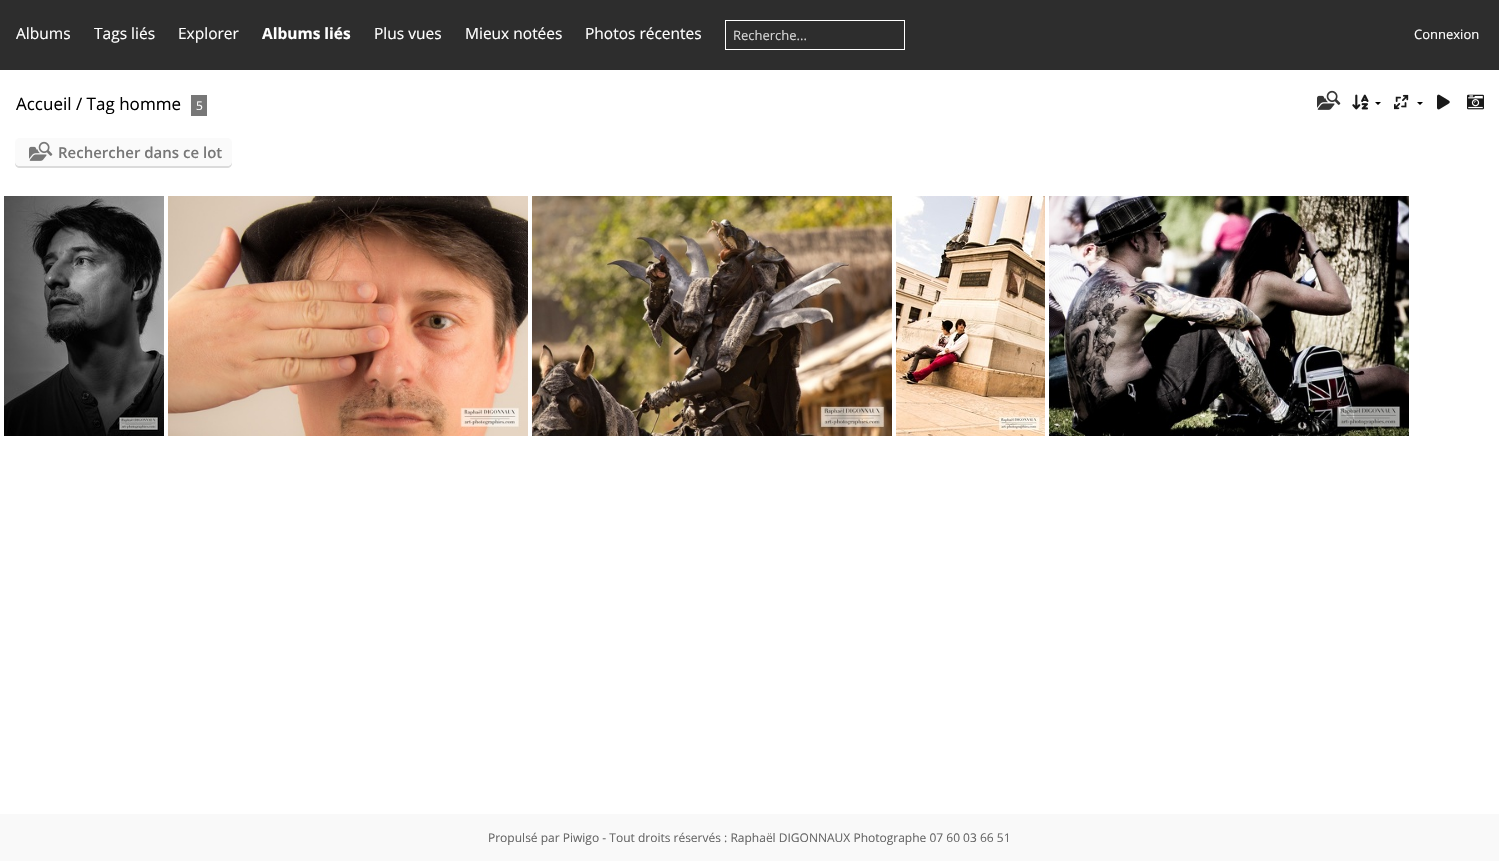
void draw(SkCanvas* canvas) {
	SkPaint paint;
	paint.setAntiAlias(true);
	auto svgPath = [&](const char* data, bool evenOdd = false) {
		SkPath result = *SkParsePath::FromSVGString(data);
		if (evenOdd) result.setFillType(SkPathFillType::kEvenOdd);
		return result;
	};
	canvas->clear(0xffffffff);
	paint.setColor(0xff2d2d2d);
	canvas->drawRect(SkRect::MakeXYWH(0, 0, 1499, 70), paint);
	SkFont f1(fontMgr->matchFamilyStyle("Open Sans", SkFontStyle::Normal()), 15.5);
	f1.setSubpixel(true);
	paint.setColor(0xffffffff);
	canvas->drawString("Albums", 16, 39, f1, paint);
	canvas->drawString("Tags liés", 94, 39, f1, paint);
	canvas->drawString("Explorer", 178, 39, f1, paint);
	SkFont f2(fontMgr->matchFamilyStyle("Open Sans", SkFontStyle::Bold()), 15.5);
	f2.setSubpixel(true);
	canvas->drawString("Albums liés", 262, 39, f2, paint);
	canvas->drawString("Plus vues", 374, 39, f1, paint);
	canvas->drawString("Mieux notées", 465, 39, f1, paint);
	canvas->drawString("Photos récentes", 585, 39, f1, paint);
	paint.setStroke(true);
	paint.setStrokeWidth(1);
	canvas->drawRect(SkRect::MakeXYWH(725.5, 20.5, 179, 29), paint);
	SkFont f3(fontMgr->matchFamilyStyle("Open Sans", SkFontStyle::Normal()), 13);
	f3.setSubpixel(true);
	paint.setStroke(false);
	paint.setColor(0xffd6d6d6);
	canvas->drawString("Recherche...", 733, 40, f3, paint);
	paint.setColor(0xffffffff);
	canvas->drawString("Connexion", 1414, 39, f3, paint);
	SkFont f4(fontMgr->matchFamilyStyle("Open Sans", SkFontStyle::Normal()), 17);
	f4.setSubpixel(true);
	paint.setColor(0xff000000);
	canvas->drawString("Accueil / Tag homme", 16, 110, f4, paint);
	paint.setColor(0xff777777);
	canvas->drawRect(SkRect::MakeXYWH(191, 95, 16, 21), paint);
	SkFont f5(fontMgr->matchFamilyStyle("Open Sans", SkFontStyle::Normal()), 12);
	f5.setSubpixel(true);
	paint.setColor(0xffffffff);
	canvas->drawString("5", 196, 110, f5, paint);
	canvas->drawImageRect(SkImages::DeferredFromEncodedData(SkData::MakeFromFileName("img1.png")), SkRect::MakeXYWH(1317, 90, 24, 20), SkSamplingOptions());
	canvas->drawImageRect(SkImages::DeferredFromEncodedData(SkData::MakeFromFileName("img2.png")), SkRect::MakeXYWH(1352, 94, 17, 16), SkSamplingOptions());
	paint.setColor(0xff000000);
	canvas->drawPath(svgPath("M1375 102H1381L1378 105ZM1417 102H1423L1420 105Z"), paint);
	canvas->drawImageRect(SkImages::DeferredFromEncodedData(SkData::MakeFromFileName("img3.png")), SkRect::MakeXYWH(1394, 94, 15, 16), SkSamplingOptions());
	canvas->drawImageRect(SkImages::DeferredFromEncodedData(SkData::MakeFromFileName("img4.png")), SkRect::MakeXYWH(1437, 94, 13, 16), SkSamplingOptions());
	canvas->drawImageRect(SkImages::DeferredFromEncodedData(SkData::MakeFromFileName("img5.png")), SkRect::MakeXYWH(1467, 94, 17, 16), SkSamplingOptions());
	paint.setColor(0xffdbdbdb);
	canvas->drawPath(svgPath("M15 161V163C15 166 17 168 20 168H227C230 168 232 166 232 163V161C232 164 230 166 227 166H20C17 166 15 164 15 161Z"), paint);
	paint.setColor(0xfffafafa);
	canvas->drawRoundRect(SkRect::MakeXYWH(15, 138, 217, 28), 5, 5, paint);
	canvas->drawImageRect(SkImages::DeferredFromEncodedData(SkData::MakeFromFileName("img6.png")), SkRect::MakeXYWH(29, 141, 24, 20), SkSamplingOptions());
	SkFont f6(fontMgr->matchFamilyStyle("Open Sans", SkFontStyle(600, SkFontStyle::kNormal_Width, SkFontStyle::kUpright_Slant)), 15);
	f6.setSubpixel(true);
	paint.setColor(0xff777777);
	canvas->drawString("Rechercher dans ce lot", 58, 158, f6, paint);
	canvas->drawImageRect(SkImages::DeferredFromEncodedData(SkData::MakeFromFileName("img7.png")), SkRect::MakeXYWH(4, 196, 160, 240), SkSamplingOptions());
	canvas->drawImageRect(SkImages::DeferredFromEncodedData(SkData::MakeFromFileName("img8.png")), SkRect::MakeXYWH(168, 196, 360, 240), SkSamplingOptions());
	canvas->drawImageRect(SkImages::DeferredFromEncodedData(SkData::MakeFromFileName("img9.png")), SkRect::MakeXYWH(532, 196, 360, 240), SkSamplingOptions());
	canvas->drawImageRect(SkImages::DeferredFromEncodedData(SkData::MakeFromFileName("img10.png")), SkRect::MakeXYWH(896, 196, 149, 240), SkSamplingOptions());
	canvas->drawImageRect(SkImages::DeferredFromEncodedData(SkData::MakeFromFileName("img11.png")), SkRect::MakeXYWH(1049, 196, 360, 240), SkSamplingOptions());
	paint.setColor(0xfff9f9f9);
	canvas->drawRect(SkRect::MakeXYWH(0, 814, 1499, 47), paint);
	paint.setColor(0xff666666);
	canvas->drawString("Propulsé par Piwigo - Tout droits réservés : Raphaël DIGONNAUX Photographe 07 60 03 66 51", 488, 842, f5, paint);
}
